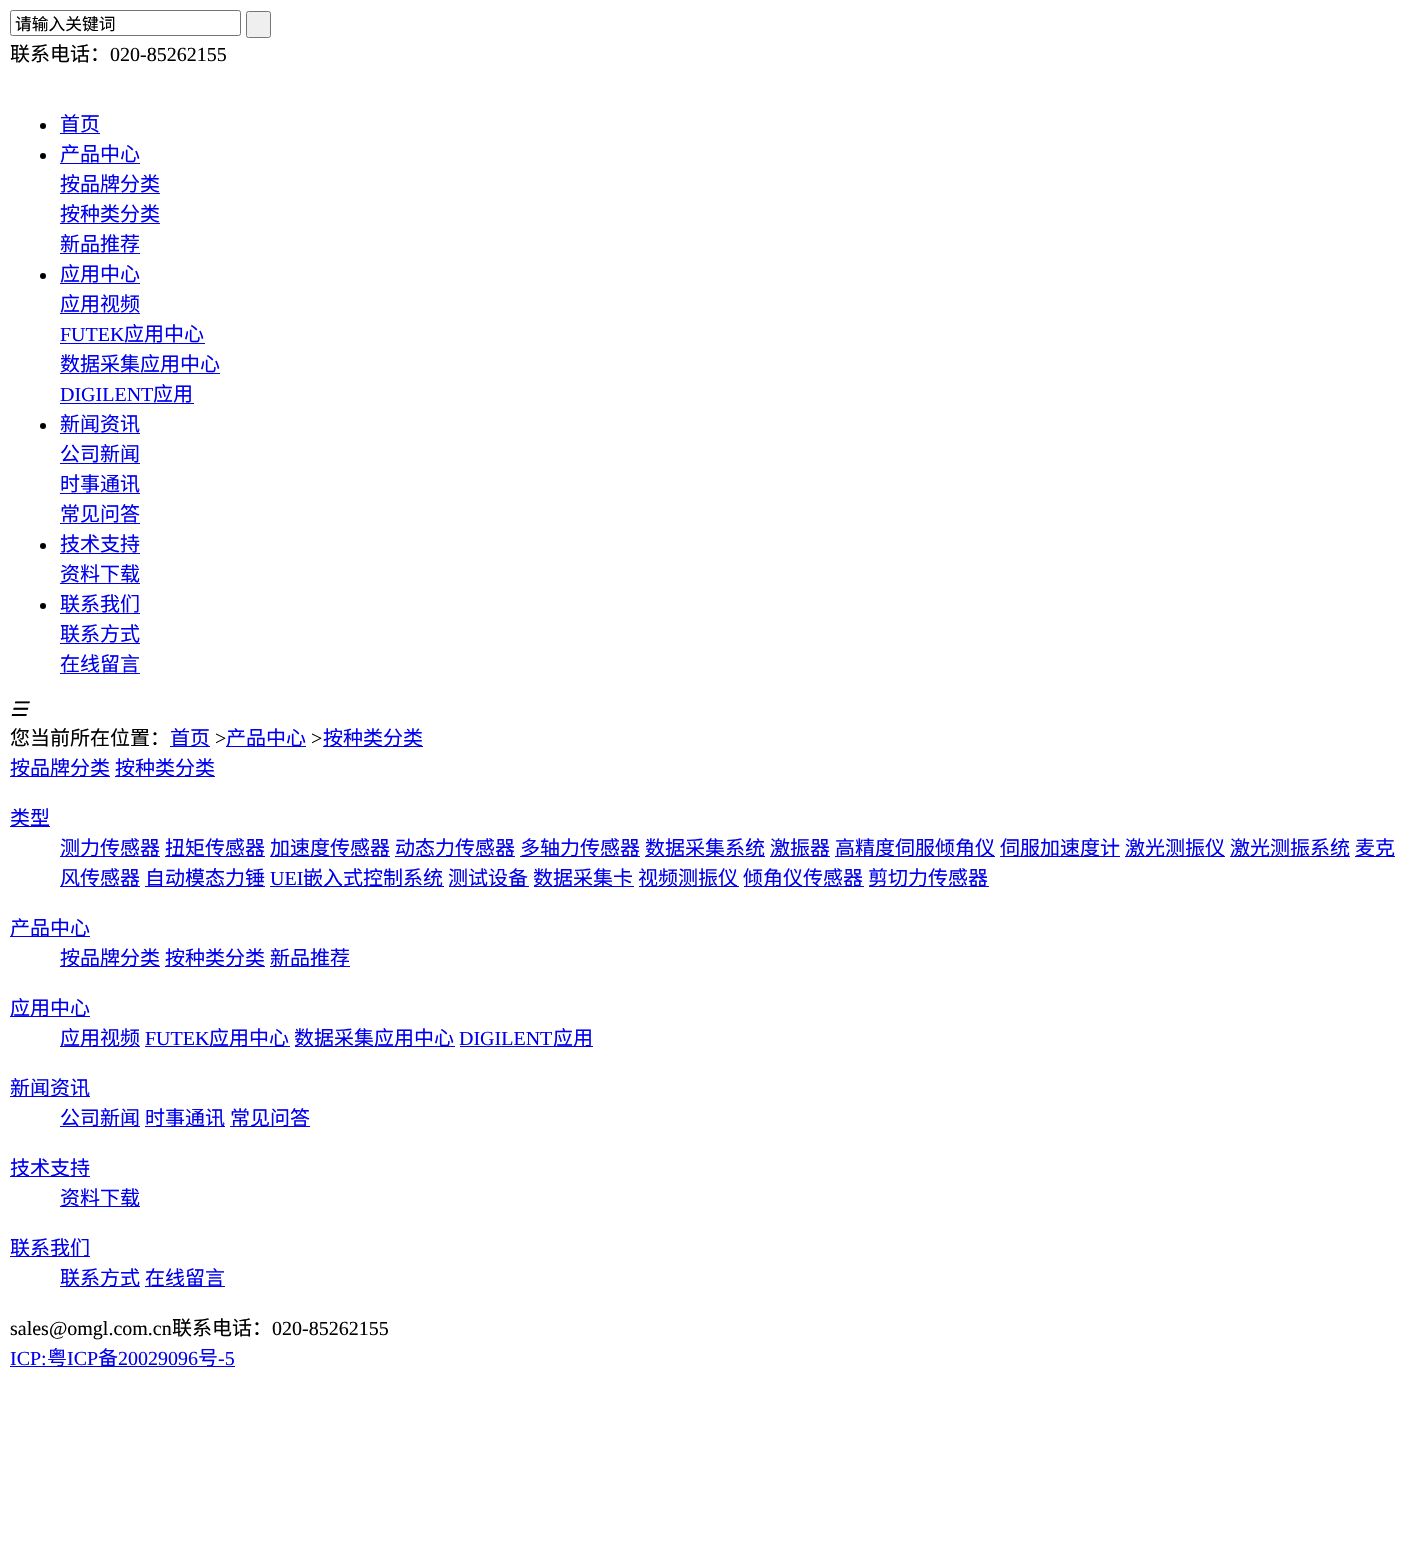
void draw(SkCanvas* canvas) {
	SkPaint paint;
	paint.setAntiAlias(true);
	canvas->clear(0xffffffff);
	paint.setStroke(true);
	paint.setStrokeWidth(1);
	paint.setColor(0xff767676);
	canvas->drawRoundRect(SkRect::MakeXYWH(10.5, 10.5, 230, 25), 2, 2, paint);
	SkFont f1(fontMgr->matchFamilyStyle("Noto Sans CJK SC", SkFontStyle::Normal()), 16.75);
	f1.setSubpixel(true);
	paint.setStroke(false);
	paint.setColor(0xff000000);
	canvas->drawString("请输入关键词", 15, 30, f1, paint);
	paint.setColor(0xffefefef);
	canvas->drawRoundRect(SkRect::MakeXYWH(246.5, 11.5, 24, 26), 2, 2, paint);
	paint.setStroke(true);
	paint.setColor(0xff767676);
	canvas->drawRoundRect(SkRect::MakeXYWH(246.5, 11.5, 24, 26), 2, 2, paint);
	SkFont f2(fontMgr->matchFamilyStyle("Noto Sans CJK SC", SkFontStyle::Normal()), 20);
	f2.setSubpixel(true);
	paint.setStroke(false);
	paint.setColor(0xff000000);
	canvas->drawString("联系电话：", 10, 61, f2, paint);
	SkFont f3(fontMgr->matchFamilyStyle("Liberation Serif", SkFontStyle::Normal()), 20);
	f3.setSubpixel(true);
	canvas->drawString("020-85262155", 110, 61, f3, paint);
	canvas->drawCircle(43, 126, 3, paint);
	paint.setColor(0xff0000ee);
	canvas->drawString("首页", 60, 131, f2, paint);
	canvas->drawRect(SkRect::MakeXYWH(60, 133, 40, 1), paint);
	paint.setColor(0xff000000);
	canvas->drawCircle(43, 156, 3, paint);
	paint.setColor(0xff0000ee);
	canvas->drawString("产品中心", 60, 161, f2, paint);
	canvas->drawRect(SkRect::MakeXYWH(60, 163, 80, 1), paint);
	canvas->drawString("按品牌分类", 60, 191, f2, paint);
	canvas->drawRect(SkRect::MakeXYWH(60, 193, 100, 1), paint);
	canvas->drawString("按种类分类", 60, 221, f2, paint);
	canvas->drawRect(SkRect::MakeXYWH(60, 223, 100, 1), paint);
	canvas->drawString("新品推荐", 60, 251, f2, paint);
	canvas->drawRect(SkRect::MakeXYWH(60, 253, 80, 1), paint);
	paint.setColor(0xff000000);
	canvas->drawCircle(43, 276, 3, paint);
	paint.setColor(0xff0000ee);
	canvas->drawString("应用中心", 60, 281, f2, paint);
	canvas->drawRect(SkRect::MakeXYWH(60, 283, 80, 1), paint);
	canvas->drawString("应用视频", 60, 311, f2, paint);
	canvas->drawRect(SkRect::MakeXYWH(60, 313, 80, 1), paint);
	canvas->drawString("FUTEK", 60, 341, f3, paint);
	canvas->drawRect(SkRect::MakeXYWH(60, 343, 145, 1), paint);
	canvas->drawString("应用中心", 124, 341, f2, paint);
	canvas->drawString("数据采集应用中心", 60, 371, f2, paint);
	canvas->drawRect(SkRect::MakeXYWH(60, 373, 160, 1), paint);
	canvas->drawString("DIGILENT", 60, 401, f3, paint);
	canvas->drawRect(SkRect::MakeXYWH(60, 403, 134, 1), paint);
	canvas->drawString("应用", 153, 401, f2, paint);
	paint.setColor(0xff000000);
	canvas->drawCircle(43, 426, 3, paint);
	paint.setColor(0xff0000ee);
	canvas->drawString("新闻资讯", 60, 431, f2, paint);
	canvas->drawRect(SkRect::MakeXYWH(60, 433, 80, 1), paint);
	canvas->drawString("公司新闻", 60, 461, f2, paint);
	canvas->drawRect(SkRect::MakeXYWH(60, 463, 80, 1), paint);
	canvas->drawString("时事通讯", 60, 491, f2, paint);
	canvas->drawRect(SkRect::MakeXYWH(60, 493, 80, 1), paint);
	canvas->drawString("常见问答", 60, 521, f2, paint);
	canvas->drawRect(SkRect::MakeXYWH(60, 523, 80, 1), paint);
	paint.setColor(0xff000000);
	canvas->drawCircle(43, 546, 3, paint);
	paint.setColor(0xff0000ee);
	canvas->drawString("技术支持", 60, 551, f2, paint);
	canvas->drawRect(SkRect::MakeXYWH(60, 553, 80, 1), paint);
	canvas->drawString("资料下载", 60, 581, f2, paint);
	canvas->drawRect(SkRect::MakeXYWH(60, 583, 80, 1), paint);
	paint.setColor(0xff000000);
	canvas->drawCircle(43, 606, 3, paint);
	paint.setColor(0xff0000ee);
	canvas->drawString("联系我们", 60, 611, f2, paint);
	canvas->drawRect(SkRect::MakeXYWH(60, 613, 80, 1), paint);
	canvas->drawString("联系方式", 60, 641, f2, paint);
	canvas->drawRect(SkRect::MakeXYWH(60, 643, 80, 1), paint);
	canvas->drawString("在线留言", 60, 671, f2, paint);
	canvas->drawRect(SkRect::MakeXYWH(60, 673, 80, 1), paint);
	SkFont f4(fontMgr->matchFamilyStyle("DejaVu Sans", SkFontStyle::Italic()), 20);
	f4.setSubpixel(true);
	paint.setColor(0xff000000);
	canvas->drawString("☰", 10, 716, f4, paint);
	canvas->drawString("您当前所在位置：", 10, 745, f2, paint);
	paint.setColor(0xff0000ee);
	canvas->drawRect(SkRect::MakeXYWH(170, 746, 40, 1), paint);
	canvas->drawString("首页", 170, 745, f2, paint);
	paint.setColor(0xff000000);
	canvas->drawString(">", 215, 745, f3, paint);
	paint.setColor(0xff0000ee);
	canvas->drawRect(SkRect::MakeXYWH(226, 746, 80, 1), paint);
	canvas->drawString("产品中心", 226, 745, f2, paint);
	paint.setColor(0xff000000);
	canvas->drawString(">", 311, 745, f3, paint);
	paint.setColor(0xff0000ee);
	canvas->drawRect(SkRect::MakeXYWH(323, 746, 100, 1), paint);
	canvas->drawString("按种类分类", 323, 745, f2, paint);
	canvas->drawRect(SkRect::MakeXYWH(10, 776, 100, 1), paint);
	canvas->drawString("按品牌分类", 10, 775, f2, paint);
	canvas->drawRect(SkRect::MakeXYWH(115, 776, 100, 1), paint);
	canvas->drawString("按种类分类", 115, 775, f2, paint);
	canvas->drawRect(SkRect::MakeXYWH(10, 826, 40, 1), paint);
	canvas->drawString("类型", 10, 825, f2, paint);
	canvas->drawRect(SkRect::MakeXYWH(60, 856, 100, 1), paint);
	canvas->drawString("测力传感器", 60, 855, f2, paint);
	canvas->drawRect(SkRect::MakeXYWH(165, 856, 100, 1), paint);
	canvas->drawString("扭矩传感器", 165, 855, f2, paint);
	canvas->drawRect(SkRect::MakeXYWH(270, 856, 120, 1), paint);
	canvas->drawString("加速度传感器", 270, 855, f2, paint);
	canvas->drawRect(SkRect::MakeXYWH(395, 856, 120, 1), paint);
	canvas->drawString("动态力传感器", 395, 855, f2, paint);
	canvas->drawRect(SkRect::MakeXYWH(520, 856, 120, 1), paint);
	canvas->drawString("多轴力传感器", 520, 855, f2, paint);
	canvas->drawRect(SkRect::MakeXYWH(645, 856, 120, 1), paint);
	canvas->drawString("数据采集系统", 645, 855, f2, paint);
	canvas->drawRect(SkRect::MakeXYWH(770, 856, 60, 1), paint);
	canvas->drawString("激振器", 770, 855, f2, paint);
	canvas->drawRect(SkRect::MakeXYWH(835, 856, 160, 1), paint);
	canvas->drawString("高精度伺服倾角仪", 835, 855, f2, paint);
	canvas->drawRect(SkRect::MakeXYWH(1000, 856, 120, 1), paint);
	canvas->drawString("伺服加速度计", 1000, 855, f2, paint);
	canvas->drawRect(SkRect::MakeXYWH(1125, 856, 100, 1), paint);
	canvas->drawString("激光测振仪", 1125, 855, f2, paint);
	canvas->drawRect(SkRect::MakeXYWH(1230, 856, 120, 1), paint);
	canvas->drawString("激光测振系统", 1230, 855, f2, paint);
	canvas->drawRect(SkRect::MakeXYWH(1355, 856, 40, 1), paint);
	canvas->drawString("麦克", 1355, 855, f2, paint);
	canvas->drawRect(SkRect::MakeXYWH(60, 886, 80, 1), paint);
	canvas->drawString("风传感器", 60, 885, f2, paint);
	canvas->drawRect(SkRect::MakeXYWH(145, 886, 120, 1), paint);
	canvas->drawString("自动模态力锤", 145, 885, f2, paint);
	canvas->drawString("UEI", 270, 885, f3, paint);
	canvas->drawRect(SkRect::MakeXYWH(270, 886, 174, 1), paint);
	canvas->drawString("嵌入式控制系统", 303, 885, f2, paint);
	canvas->drawRect(SkRect::MakeXYWH(449, 886, 80, 1), paint);
	canvas->drawString("测试设备", 448, 885, f2, paint);
	canvas->drawRect(SkRect::MakeXYWH(534, 886, 100, 1), paint);
	canvas->drawString("数据采集卡", 533, 885, f2, paint);
	canvas->drawRect(SkRect::MakeXYWH(639, 886, 100, 1), paint);
	canvas->drawString("视频测振仪", 638, 885, f2, paint);
	canvas->drawRect(SkRect::MakeXYWH(744, 886, 120, 1), paint);
	canvas->drawString("倾角仪传感器", 743, 885, f2, paint);
	canvas->drawRect(SkRect::MakeXYWH(869, 886, 120, 1), paint);
	canvas->drawString("剪切力传感器", 868, 885, f2, paint);
	canvas->drawRect(SkRect::MakeXYWH(10, 936, 80, 1), paint);
	canvas->drawString("产品中心", 10, 935, f2, paint);
	canvas->drawRect(SkRect::MakeXYWH(60, 966, 100, 1), paint);
	canvas->drawString("按品牌分类", 60, 965, f2, paint);
	canvas->drawRect(SkRect::MakeXYWH(165, 966, 100, 1), paint);
	canvas->drawString("按种类分类", 165, 965, f2, paint);
	canvas->drawRect(SkRect::MakeXYWH(270, 966, 80, 1), paint);
	canvas->drawString("新品推荐", 270, 965, f2, paint);
	canvas->drawRect(SkRect::MakeXYWH(10, 1016, 80, 1), paint);
	canvas->drawString("应用中心", 10, 1015, f2, paint);
	canvas->drawRect(SkRect::MakeXYWH(60, 1046, 80, 1), paint);
	canvas->drawString("应用视频", 60, 1045, f2, paint);
	canvas->drawString("FUTEK", 145, 1045, f3, paint);
	canvas->drawRect(SkRect::MakeXYWH(145, 1046, 145, 1), paint);
	canvas->drawString("应用中心", 209, 1045, f2, paint);
	canvas->drawRect(SkRect::MakeXYWH(295, 1046, 160, 1), paint);
	canvas->drawString("数据采集应用中心", 294, 1045, f2, paint);
	canvas->drawString("DIGILENT", 459, 1045, f3, paint);
	canvas->drawRect(SkRect::MakeXYWH(460, 1046, 133, 1), paint);
	canvas->drawString("应用", 553, 1045, f2, paint);
	canvas->drawRect(SkRect::MakeXYWH(10, 1096, 80, 1), paint);
	canvas->drawString("新闻资讯", 10, 1095, f2, paint);
	canvas->drawRect(SkRect::MakeXYWH(60, 1126, 80, 1), paint);
	canvas->drawString("公司新闻", 60, 1125, f2, paint);
	canvas->drawRect(SkRect::MakeXYWH(145, 1126, 80, 1), paint);
	canvas->drawString("时事通讯", 145, 1125, f2, paint);
	canvas->drawRect(SkRect::MakeXYWH(230, 1126, 80, 1), paint);
	canvas->drawString("常见问答", 230, 1125, f2, paint);
	canvas->drawRect(SkRect::MakeXYWH(10, 1176, 80, 1), paint);
	canvas->drawString("技术支持", 10, 1175, f2, paint);
	canvas->drawRect(SkRect::MakeXYWH(60, 1206, 80, 1), paint);
	canvas->drawString("资料下载", 60, 1205, f2, paint);
	canvas->drawRect(SkRect::MakeXYWH(10, 1256, 80, 1), paint);
	canvas->drawString("联系我们", 10, 1255, f2, paint);
	canvas->drawRect(SkRect::MakeXYWH(60, 1286, 80, 1), paint);
	canvas->drawString("联系方式", 60, 1285, f2, paint);
	canvas->drawRect(SkRect::MakeXYWH(145, 1286, 80, 1), paint);
	canvas->drawString("在线留言", 145, 1285, f2, paint);
	paint.setColor(0xff000000);
	canvas->drawString("sales@omgl.com.cn", 10, 1335, f3, paint);
	canvas->drawString("联系电话：", 172, 1335, f2, paint);
	canvas->drawString("020-85262155", 272, 1335, f3, paint);
	paint.setColor(0xff0000ee);
	canvas->drawString("ICP:", 10, 1365, f3, paint);
	canvas->drawRect(SkRect::MakeXYWH(10, 1366, 225, 1), paint);
	canvas->drawString("粤", 47, 1365, f2, paint);
	canvas->drawString("ICP", 67, 1365, f3, paint);
	canvas->drawString("备", 98, 1365, f2, paint);
	canvas->drawString("20029096", 118, 1365, f3, paint);
	canvas->drawString("号", 198, 1365, f2, paint);
	canvas->drawString("-5", 218, 1365, f3, paint);
}
